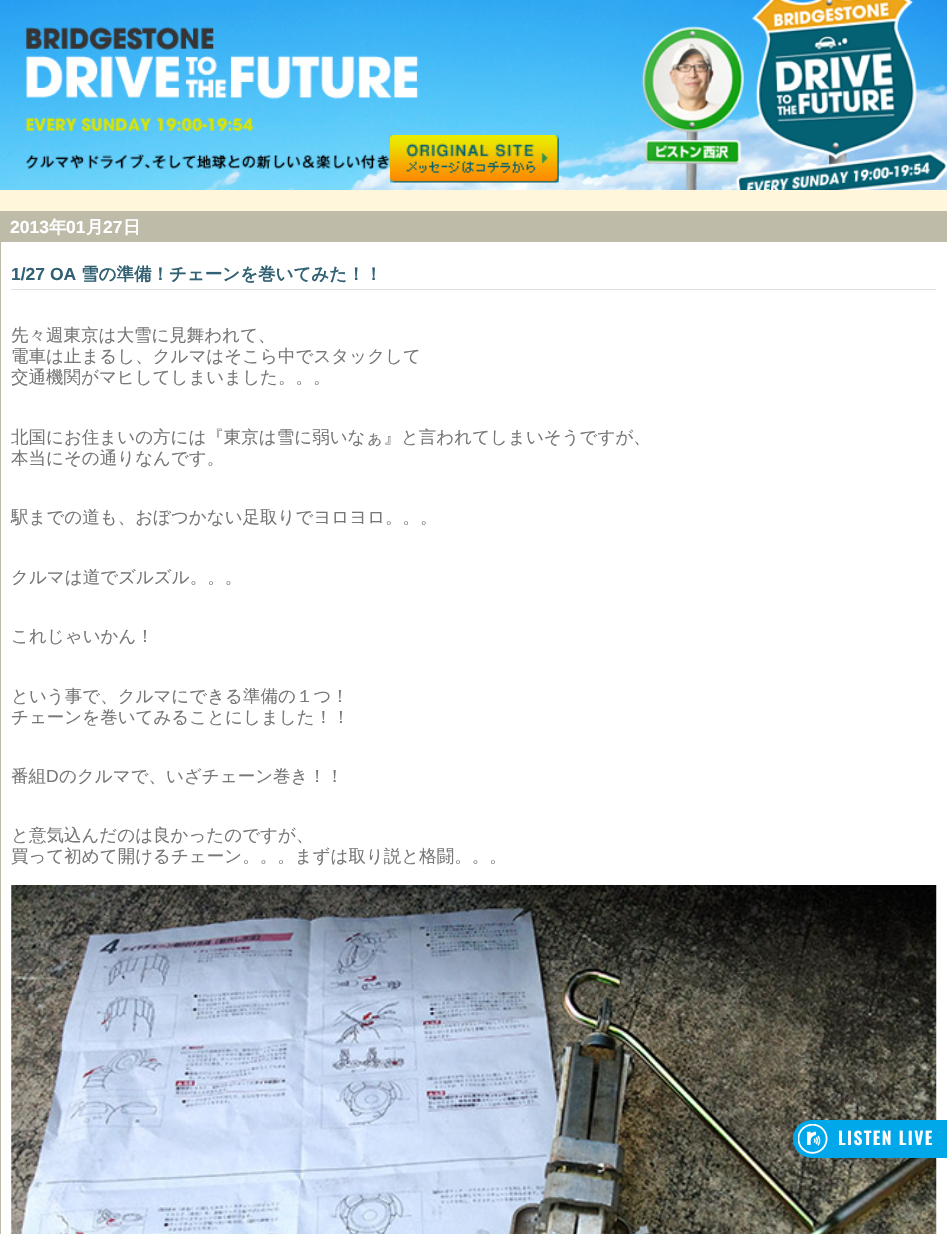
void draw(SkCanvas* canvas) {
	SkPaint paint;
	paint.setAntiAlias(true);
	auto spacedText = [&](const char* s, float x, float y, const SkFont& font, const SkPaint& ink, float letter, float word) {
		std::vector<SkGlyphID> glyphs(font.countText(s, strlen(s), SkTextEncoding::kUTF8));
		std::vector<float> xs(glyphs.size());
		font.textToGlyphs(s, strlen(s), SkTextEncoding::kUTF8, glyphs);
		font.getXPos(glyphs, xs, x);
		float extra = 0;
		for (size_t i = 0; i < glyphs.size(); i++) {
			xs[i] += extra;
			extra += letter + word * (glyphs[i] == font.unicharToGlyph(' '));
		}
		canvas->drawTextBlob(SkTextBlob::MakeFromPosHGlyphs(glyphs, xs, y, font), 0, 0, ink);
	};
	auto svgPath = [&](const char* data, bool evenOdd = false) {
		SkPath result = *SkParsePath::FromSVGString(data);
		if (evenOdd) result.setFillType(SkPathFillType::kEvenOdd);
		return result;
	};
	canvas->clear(0xfffff6dc);
	canvas->drawImageRect(SkImages::DeferredFromEncodedData(SkData::MakeFromFileName("img1.png")), SkRect::MakeXYWH(0, 0, 947, 190), SkSamplingOptions());
	canvas->drawImageRect(SkImages::DeferredFromEncodedData(SkData::MakeFromFileName("img2.png")), SkRect::MakeXYWH(390, 135, 169, 48), SkSamplingOptions());
	paint.setColor(0xffbebba9);
	canvas->drawRect(SkRect::MakeXYWH(0, 211, 947, 30), paint);
	SkFont f1(fontMgr->matchFamilyStyle("Liberation Sans", SkFontStyle::Bold()), 17.5);
	f1.setSubpixel(true);
	paint.setColor(0xffffffff);
	canvas->drawString("2013", 10, 233, f1, paint);
	SkFont f2(fontMgr->matchFamilyStyle("WenQuanYi Zen Hei", SkFontStyle::Bold()), 17.5);
	f2.setSubpixel(true);
	canvas->drawString("年", 49, 233, f2, paint);
	canvas->drawString("01", 66, 233, f1, paint);
	canvas->drawString("月", 86, 233, f2, paint);
	canvas->drawString("27", 103, 233, f1, paint);
	canvas->drawString("日", 123, 233, f2, paint);
	canvas->drawRect(SkRect::MakeXYWH(0.5, 241.5, 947, 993), paint);
	paint.setStroke(true);
	paint.setStrokeWidth(1);
	paint.setColor(0xffbebba9);
	canvas->drawRect(SkRect::MakeXYWH(0.5, 241.5, 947, 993), paint);
	paint.setStroke(false);
	paint.setColor(0xffe0e0e0);
	canvas->drawRect(SkRect::MakeXYWH(11, 289, 925, 1), paint);
	paint.setColor(0xff326173);
	canvas->drawString("1/27 OA", 11, 280, f1, paint);
	canvas->drawString("雪の準備！チェーンを巻いてみた！！", 81, 280, f2, paint);
	SkFont f3(fontMgr->matchFamilyStyle("WenQuanYi Zen Hei", SkFontStyle(500, SkFontStyle::kNormal_Width, SkFontStyle::kUpright_Slant)), 17.5);
	f3.setSubpixel(true);
	paint.setColor(0xff777777);
	canvas->drawString("先々週東京は大雪に見舞われて、", 11, 341, f3, paint);
	canvas->drawString("電車は止まるし、クルマはそこら中でスタックして", 11, 362, f3, paint);
	canvas->drawString("交通機関がマヒしてしまいました。。。", 11, 383, f3, paint);
	canvas->drawString("北国にお住まいの方には『東京は雪に弱いなぁ』と言われてしまいそうですが、", 11, 443, f3, paint);
	canvas->drawString("本当にその通りなんです。", 11, 464, f3, paint);
	canvas->drawString("駅までの道も、おぼつかない足取りでヨロヨロ。。。", 11, 523, f3, paint);
	canvas->drawString("クルマは道でズルズル。。。", 11, 583, f3, paint);
	canvas->drawString("これじゃいかん！", 11, 642, f3, paint);
	canvas->drawString("という事で、クルマにできる準備の１つ！", 11, 702, f3, paint);
	canvas->drawString("チェーンを巻いてみることにしました！！", 11, 723, f3, paint);
	canvas->drawString("番組", 11, 782, f3, paint);
	SkFont f4(fontMgr->matchFamilyStyle("Liberation Sans", SkFontStyle::Normal()), 17.5);
	f4.setSubpixel(true);
	canvas->drawString("D", 46, 782, f4, paint);
	canvas->drawString("のクルマで、いざチェーン巻き！！", 59, 782, f3, paint);
	canvas->drawString("と意気込んだのは良かったのですが、", 11, 841, f3, paint);
	canvas->drawString("買って初めて開けるチェーン。。。まずは取り説と格闘。。。", 11, 862, f3, paint);
	canvas->drawImageRect(SkImages::DeferredFromEncodedData(SkData::MakeFromFileName("img3.png")), SkRect::MakeXYWH(11, 885, 926, 349), SkSamplingOptions());
	paint.setColor(0xff00a7e9);
	canvas->drawPath(svgPath("M812 1120H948V1158H812C801.5 1158 793 1149.5 793 1139C793 1128.5 801.5 1120 812 1120Z"), paint);
	canvas->drawImageRect(SkImages::DeferredFromEncodedData(SkData::MakeFromFileName("img4.png")), SkRect::MakeXYWH(798, 1124, 30, 30), SkSamplingOptions());
	SkFont f5(fontMgr->matchFamilyStyle("Oswald", SkFontStyle(600, SkFontStyle::kNormal_Width, SkFontStyle::kUpright_Slant)), 17.5);
	f5.setSubpixel(true);
	paint.setColor(0xffffffff);
	spacedText("LISTEN LIVE", 838, 1145, f5, paint, 1.4, 0);
}
